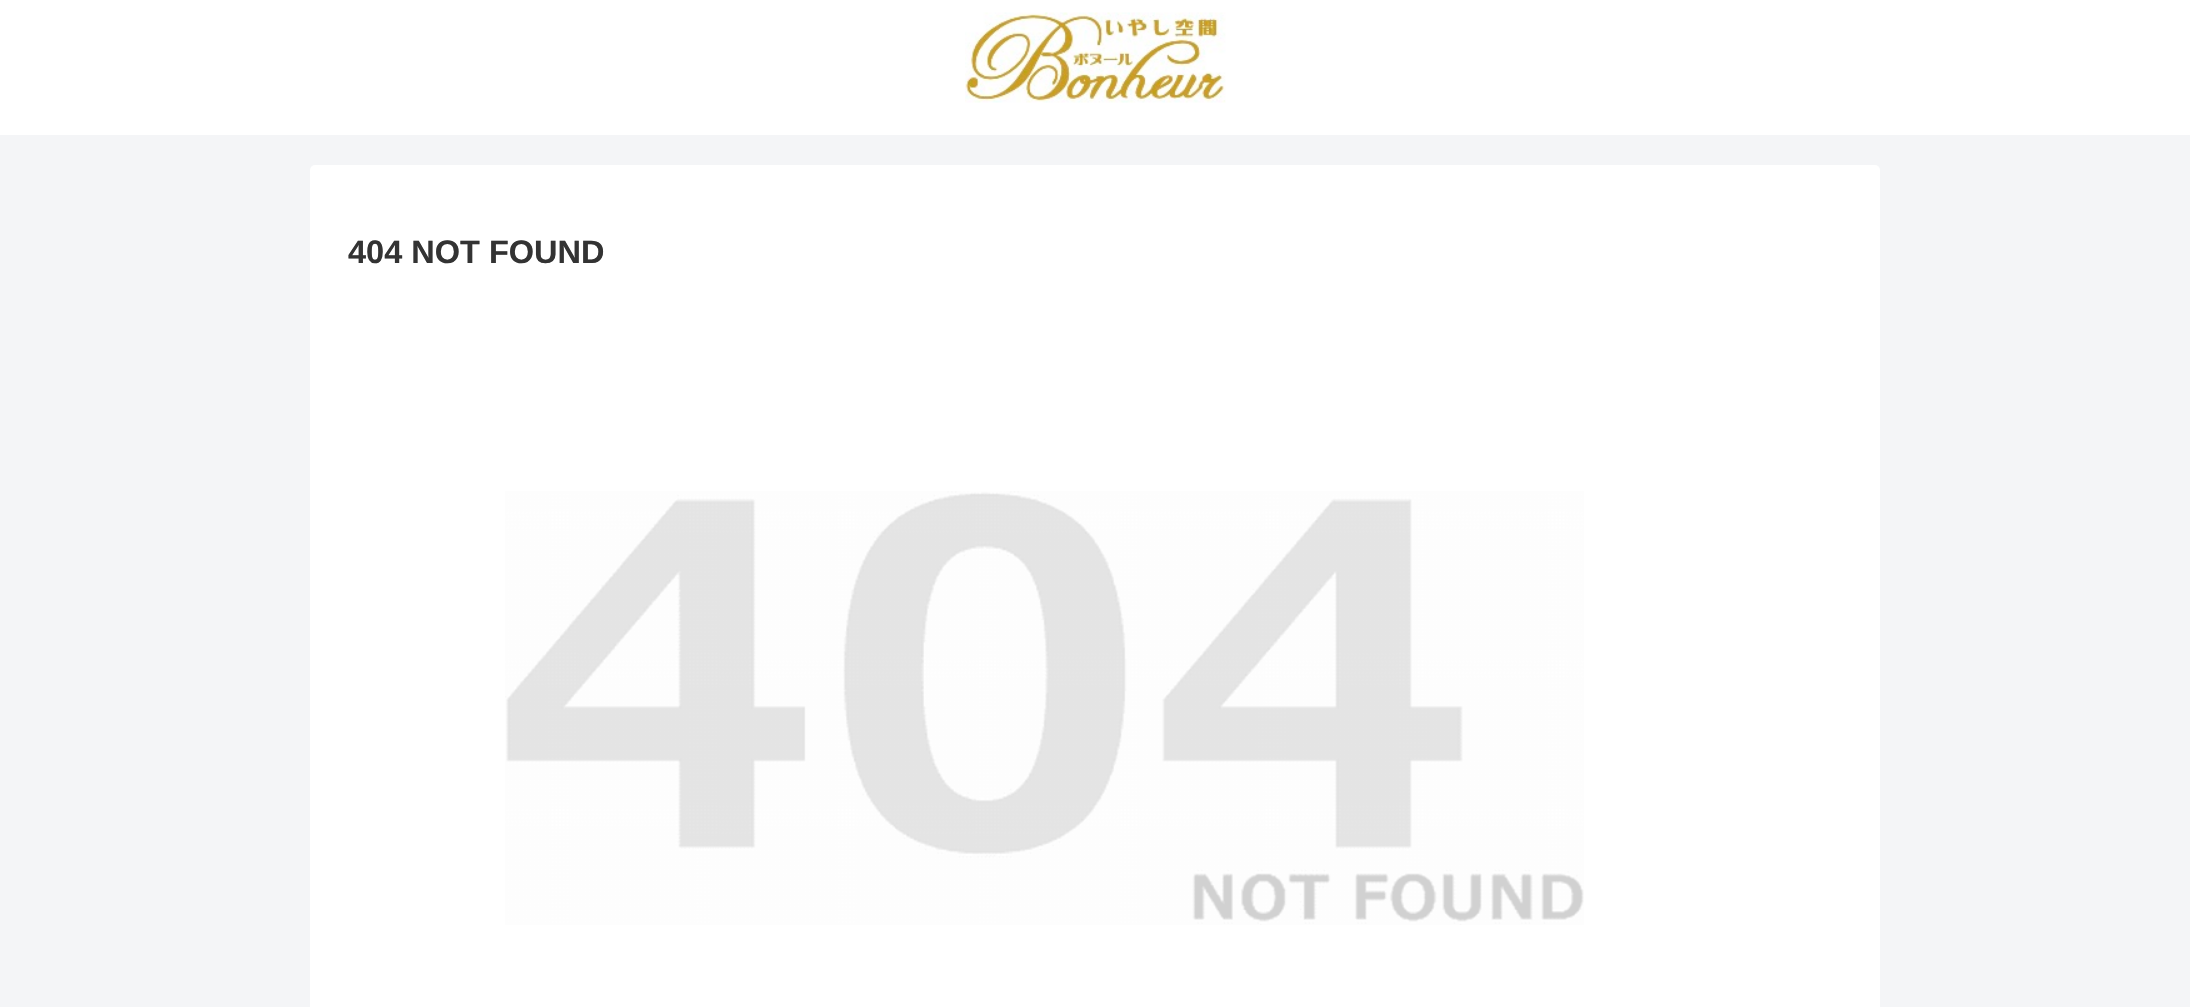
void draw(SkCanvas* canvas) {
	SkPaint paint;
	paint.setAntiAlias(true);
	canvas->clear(0xfff4f5f7);
	paint.setColor(0xffffffff);
	canvas->drawRect(SkRect::MakeXYWH(0, 0, 2190, 135), paint);
	canvas->drawImageRect(SkImages::DeferredFromEncodedData(SkData::MakeFromFileName("img1.png")), SkRect::MakeXYWH(965, 12, 261, 91), SkSamplingOptions());
	canvas->drawRoundRect(SkRect::MakeXYWH(310, 165, 1570, 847), 5, 5, paint);
	SkFont f1(fontMgr->matchFamilyStyle("Liberation Sans", SkFontStyle::Bold()), 32.5);
	f1.setSubpixel(true);
	paint.setColor(0xff333333);
	canvas->drawString("404 NOT FOUND", 348, 263, f1, paint);
	canvas->drawImageRect(SkImages::DeferredFromEncodedData(SkData::MakeFromFileName("img2.png")), SkRect::MakeXYWH(505, 491, 1079, 434), SkSamplingOptions());
}
